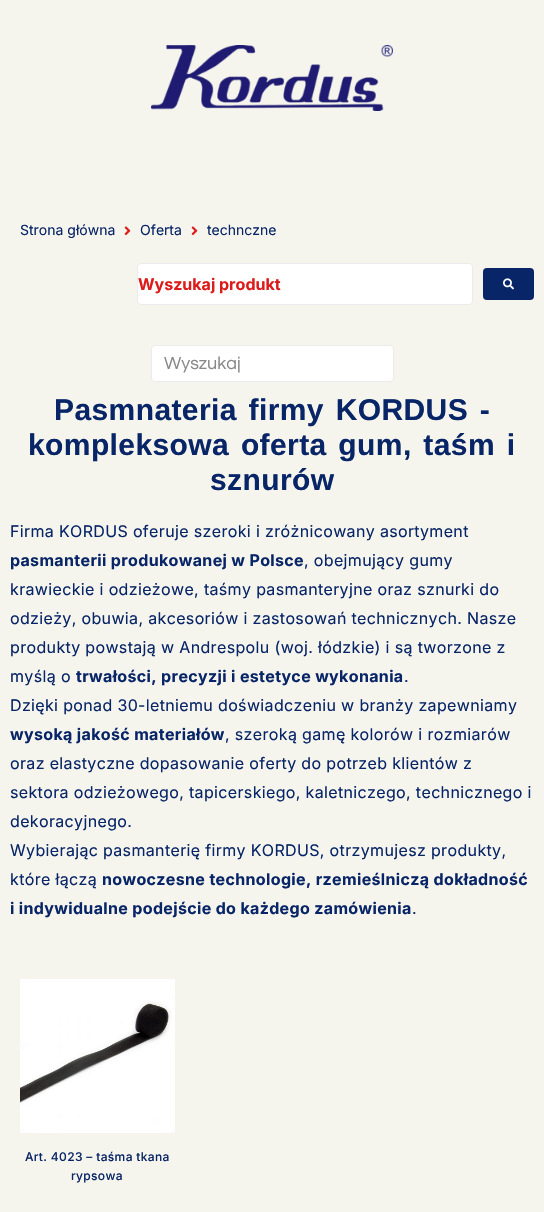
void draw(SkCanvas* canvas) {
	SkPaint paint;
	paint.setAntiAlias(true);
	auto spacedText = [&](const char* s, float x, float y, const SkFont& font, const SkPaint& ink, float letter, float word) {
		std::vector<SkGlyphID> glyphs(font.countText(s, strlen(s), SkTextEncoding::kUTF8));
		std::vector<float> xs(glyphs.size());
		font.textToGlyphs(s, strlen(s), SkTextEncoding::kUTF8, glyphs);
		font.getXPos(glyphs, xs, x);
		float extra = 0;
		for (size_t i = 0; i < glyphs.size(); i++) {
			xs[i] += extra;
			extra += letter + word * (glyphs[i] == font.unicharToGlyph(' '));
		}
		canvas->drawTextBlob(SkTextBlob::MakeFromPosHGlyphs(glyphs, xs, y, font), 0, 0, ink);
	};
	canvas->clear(0xfff6f5ed);
	canvas->drawImageRect(SkImages::DeferredFromEncodedData(SkData::MakeFromFileName("img1.png")), SkRect::MakeXYWH(151, 45, 242, 66), SkSamplingOptions());
	SkFont f1(fontMgr->matchFamilyStyle("Inter", SkFontStyle::Normal()), 14);
	f1.setSubpixel(true);
	paint.setColor(0xff082567);
	canvas->drawString("Strona główna", 20, 235, f1, paint);
	canvas->drawImageRect(SkImages::DeferredFromEncodedData(SkData::MakeFromFileName("img2.png")), SkRect::MakeXYWH(124, 226, 7, 10), SkSamplingOptions());
	canvas->drawString("Oferta", 140, 235, f1, paint);
	canvas->drawImageRect(SkImages::DeferredFromEncodedData(SkData::MakeFromFileName("img2.png")), SkRect::MakeXYWH(191, 226, 7, 10), SkSamplingOptions());
	canvas->drawString("technczne", 207, 235, f1, paint);
	paint.setColor(0xffffffff);
	canvas->drawRoundRect(SkRect::MakeXYWH(137.5, 263.5, 335, 41), 3.5, 3.5, paint);
	paint.setStroke(true);
	paint.setStrokeWidth(1);
	paint.setColor(0xffebebeb);
	canvas->drawRoundRect(SkRect::MakeXYWH(137.5, 263.5, 335, 41), 3.5, 3.5, paint);
	SkFont f2(fontMgr->matchFamilyStyle("Inter", SkFontStyle::Bold()), 16);
	f2.setSubpixel(true);
	paint.setStroke(false);
	paint.setColor(0xffdd1b1b);
	canvas->drawString("Wyszukaj produkt", 138, 290, f2, paint);
	paint.setColor(0xff082567);
	canvas->drawRoundRect(SkRect::MakeXYWH(483, 268, 51, 32), 4, 4, paint);
	canvas->drawImageRect(SkImages::DeferredFromEncodedData(SkData::MakeFromFileName("img3.png")), SkRect::MakeXYWH(503, 278, 11, 12), SkSamplingOptions());
	paint.setColor(0xffffffff);
	canvas->drawRoundRect(SkRect::MakeXYWH(151.5, 345.5, 242, 36), 3.5, 3.5, paint);
	paint.setStroke(true);
	paint.setColor(0xffebebeb);
	canvas->drawRoundRect(SkRect::MakeXYWH(151.5, 345.5, 242, 36), 3.5, 3.5, paint);
	SkFont f3(fontMgr->matchFamilyStyle("Questrial", SkFontStyle::Normal()), 18);
	f3.setSubpixel(true);
	paint.setStroke(false);
	paint.setColor(0xff888888);
	canvas->drawString("Wyszukaj", 164, 369, f3, paint);
	SkFont f4(fontMgr->matchFamilyStyle("Liberation Sans", SkFontStyle::Bold()), 30);
	f4.setSubpixel(true);
	paint.setColor(0xff082567);
	spacedText("Pasmnateria firmy KORDUS -", 54, 420, f4, paint, 0.4, 3);
	spacedText("kompleksowa oferta gum, taśm i", 28, 455, f4, paint, 0.4, 3);
	spacedText("sznurów", 210, 490, f4, paint, 0.4, 0);
	SkFont f5(fontMgr->matchFamilyStyle("Inter", SkFontStyle::Normal()), 16);
	f5.setSubpixel(true);
	spacedText("Firma KORDUS oferuje szeroki i zróżnicowany asortyment", 10, 537, f5, paint, 0.35, 0);
	spacedText("pasmanterii produkowanej w Polsce", 10, 566, f2, paint, 0.35, 0);
	spacedText(", obejmujący gumy", 304, 566, f5, paint, 0.35, 0);
	spacedText("krawieckie i odzieżowe, taśmy pasmanteryjne oraz sznurki do", 10, 595, f5, paint, 0.35, 0);
	spacedText("odzieży, obuwia, akcesoriów i zastosowań technicznych. Nasze", 10, 624, f5, paint, 0.35, 0);
	spacedText("produkty powstają w Andrespolu (woj. łódzkie) i są tworzone z", 10, 653, f5, paint, 0.35, 0);
	spacedText("myślą o", 10, 682, f5, paint, 0.35, 0);
	spacedText("trwałości, precyzji i estetyce wykonania", 76, 682, f2, paint, 0.35, 0);
	spacedText(".", 404, 682, f5, paint, 0.35, 0);
	spacedText("Dzięki ponad 30-letniemu doświadczeniu w branży zapewniamy", 10, 711, f5, paint, 0.35, 0);
	spacedText("wysoką jakość materiałów", 10, 740, f2, paint, 0.35, 0);
	spacedText(", szeroką gamę kolorów i rozmiarów", 225, 740, f5, paint, 0.35, 0);
	spacedText("oraz elastyczne dopasowanie oferty do potrzeb klientów z", 10, 769, f5, paint, 0.35, 0);
	spacedText("sektora odzieżowego, tapicerskiego, kaletniczego, technicznego i", 10, 798, f5, paint, 0.35, 0);
	spacedText("dekoracyjnego.", 10, 827, f5, paint, 0.35, 0);
	spacedText("Wybierając pasmanterię firmy KORDUS, otrzymujesz produkty,", 10, 856, f5, paint, 0.35, 0);
	spacedText("które łączą", 10, 885, f5, paint, 0.35, 0);
	spacedText("nowoczesne technologie, rzemieślniczą dokładność", 102, 885, f2, paint, 0.35, 0);
	spacedText("i indywidualne podejście do każdego zamówienia", 10, 914, f2, paint, 0.35, 0);
	spacedText(".", 412, 914, f5, paint, 0.35, 0);
	canvas->drawImageRect(SkImages::DeferredFromEncodedData(SkData::MakeFromFileName("img4.png")), SkRect::MakeXYWH(20, 979, 155, 154), SkSamplingOptions());
	SkFont f6(fontMgr->matchFamilyStyle("Inter", SkFontStyle(500, SkFontStyle::kNormal_Width, SkFontStyle::kUpright_Slant)), 12);
	f6.setSubpixel(true);
	spacedText("Art. 4023 – taśma tkana", 25, 1161, f6, paint, 0.35, 0);
	spacedText("rypsowa", 71, 1180, f6, paint, 0.35, 0);
}
